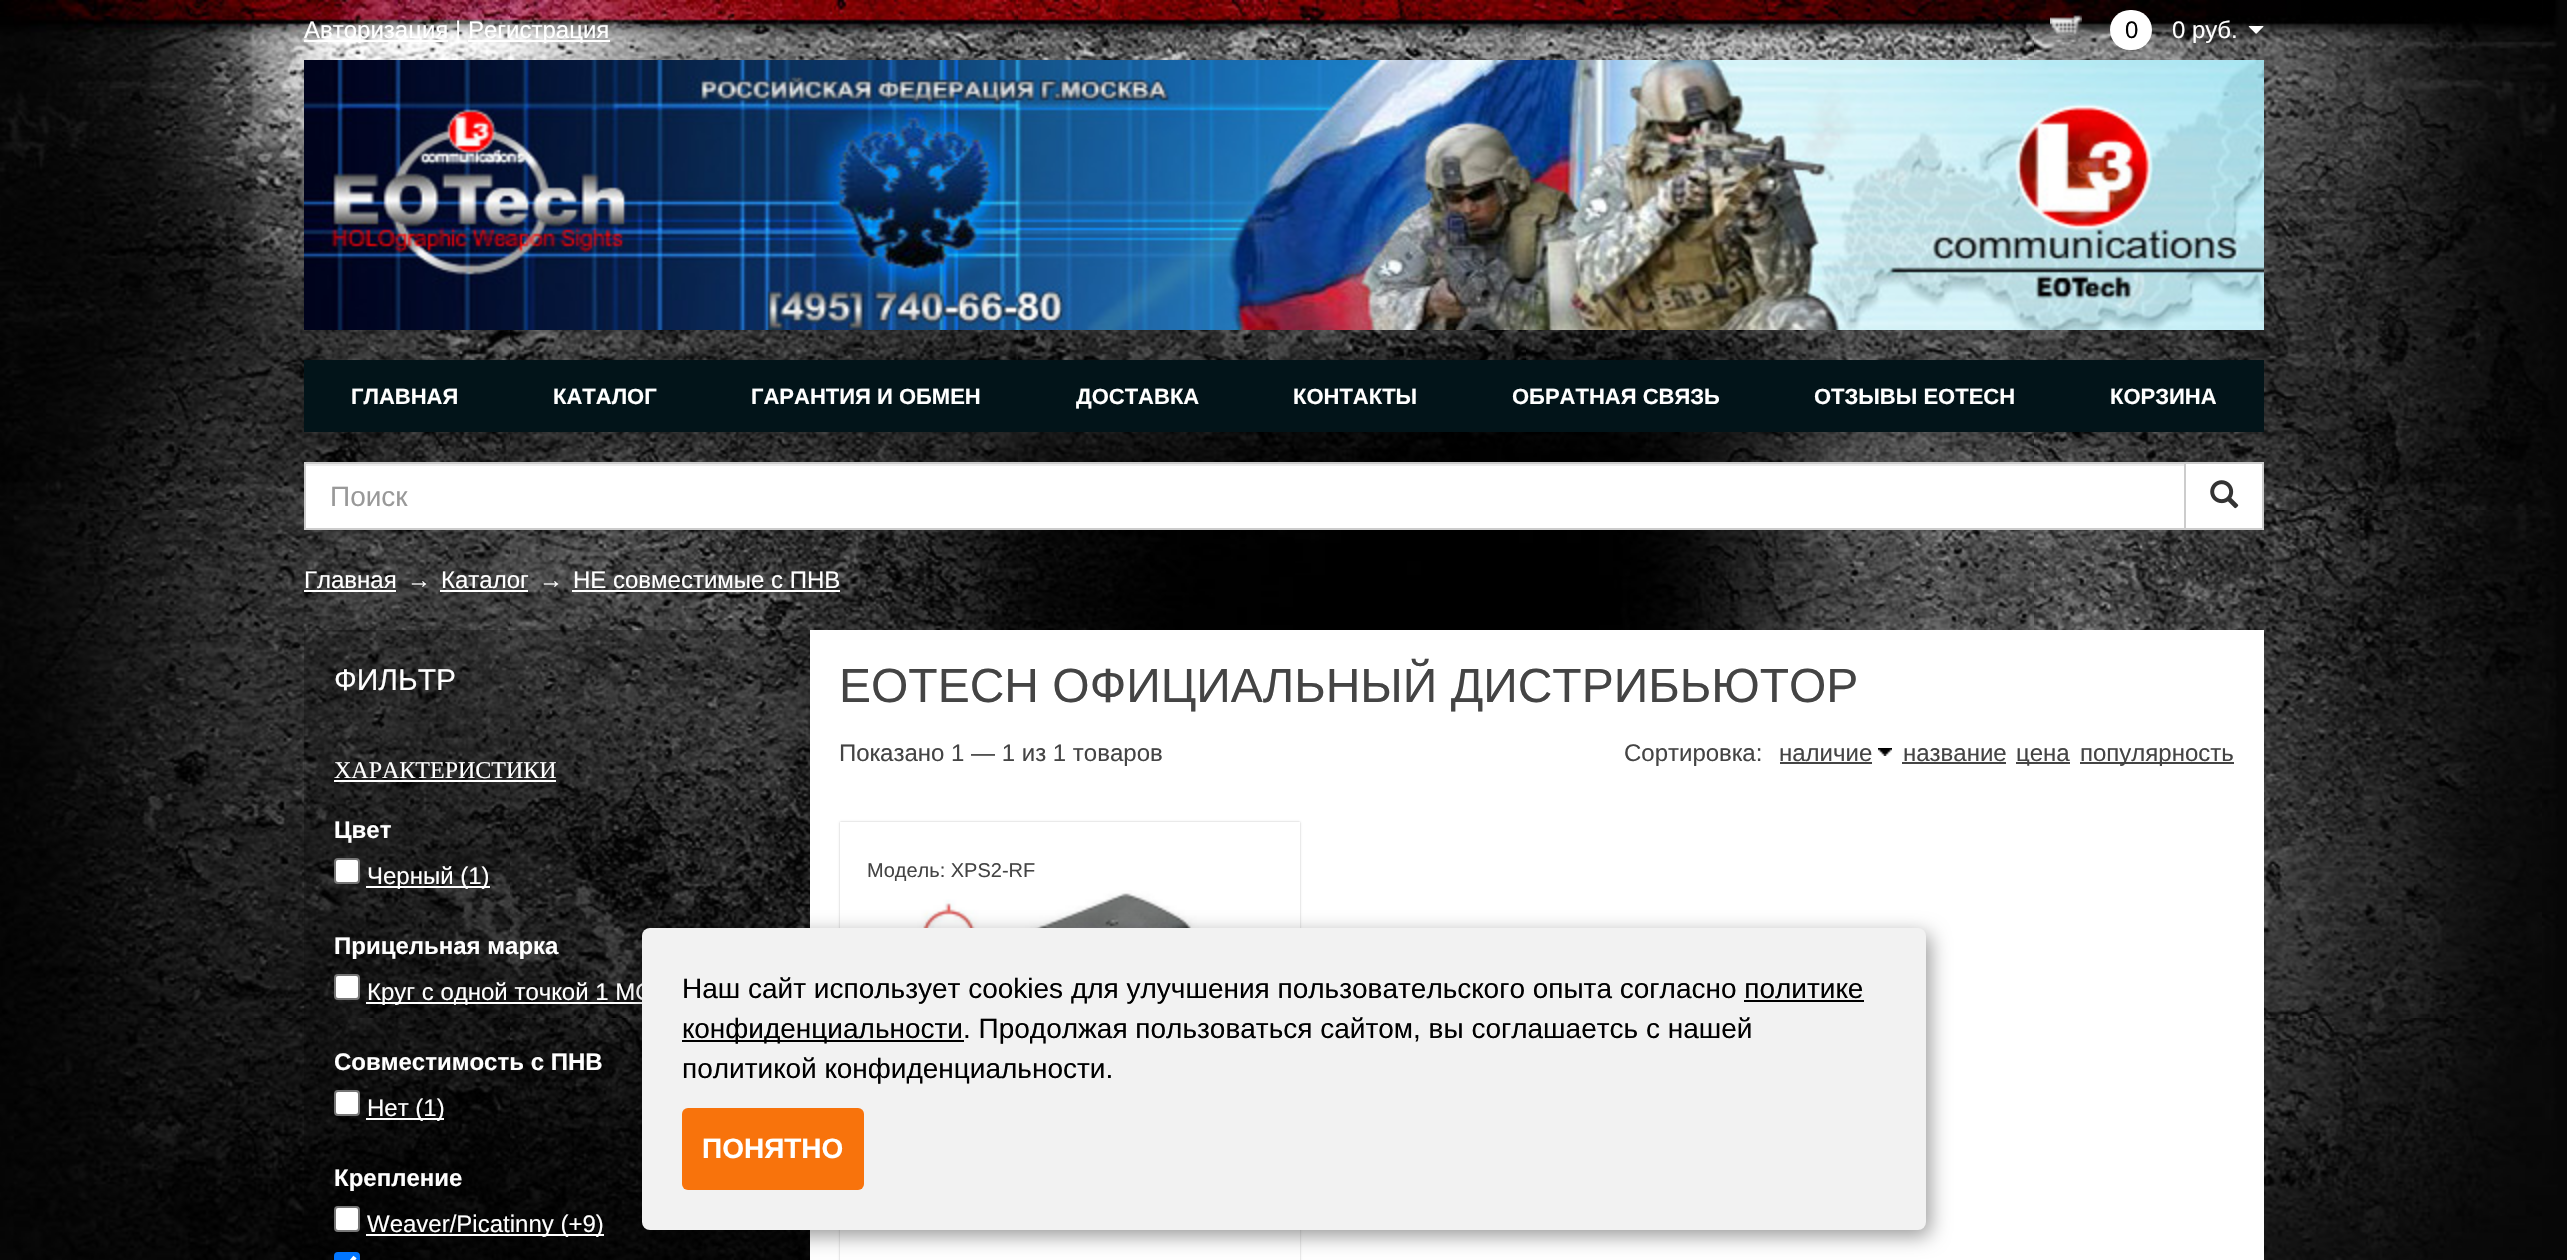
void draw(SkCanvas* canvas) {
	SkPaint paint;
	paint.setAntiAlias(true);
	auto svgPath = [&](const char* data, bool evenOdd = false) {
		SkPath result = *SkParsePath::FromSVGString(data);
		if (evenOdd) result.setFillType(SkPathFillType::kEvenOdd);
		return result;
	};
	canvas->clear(0xffffffff);
	canvas->drawImageRect(SkImages::DeferredFromEncodedData(SkData::MakeFromFileName("img1.png")), SkRect::MakeXYWH(0, 0, 2567, 1260), SkSamplingOptions());
	paint.setColor(0xffffffff);
	canvas->drawRect(SkRect::MakeXYWH(304, 40, 144, 2), paint);
	SkFont f1(fontMgr->matchFamilyStyle("Liberation Sans", SkFontStyle::Normal()), 24);
	f1.setSubpixel(true);
	canvas->drawString("Авторизация |", 304, 38, f1, paint);
	canvas->drawRect(SkRect::MakeXYWH(468, 40, 142, 2), paint);
	canvas->drawString("Регистрация", 468, 38, f1, paint);
	canvas->drawImageRect(SkImages::DeferredFromEncodedData(SkData::MakeFromFileName("img2.png")), SkRect::MakeXYWH(2050, 15, 32, 30), SkSamplingOptions());
	canvas->drawRoundRect(SkRect::MakeXYWH(2110, 10, 42, 40), 20, 20, paint);
	paint.setColor(0xff000000);
	canvas->drawString("0", 2125, 38, f1, paint);
	paint.setColor(0xffffffff);
	canvas->drawString("0 руб.", 2172, 38, f1, paint);
	canvas->drawImageRect(SkImages::DeferredFromEncodedData(SkData::MakeFromFileName("img3.png")), SkRect::MakeXYWH(2248, 26, 16, 8), SkSamplingOptions());
	canvas->drawImageRect(SkImages::DeferredFromEncodedData(SkData::MakeFromFileName("img4.png")), SkRect::MakeXYWH(304, 60, 1960, 270), SkSamplingOptions());
	paint.setColor(0xff021419);
	canvas->drawRect(SkRect::MakeXYWH(304, 360, 1960, 72), paint);
	SkFont f2(fontMgr->matchFamilyStyle("Liberation Sans", SkFontStyle::Bold()), 22);
	f2.setSubpixel(true);
	paint.setColor(0xffffffff);
	canvas->drawString("ГЛАВНАЯ", 351, 404, f2, paint);
	canvas->drawString("КАТАЛОГ", 553, 404, f2, paint);
	canvas->drawString("ГАРАНТИЯ И ОБМЕН", 751, 404, f2, paint);
	canvas->drawString("ДОСТАВКА", 1076, 404, f2, paint);
	canvas->drawString("КОНТАКТЫ", 1293, 404, f2, paint);
	canvas->drawString("ОБРАТНАЯ СВЯЗЬ", 1512, 404, f2, paint);
	canvas->drawString("ОТЗЫВЫ EOTECH", 1814, 404, f2, paint);
	canvas->drawString("КОРЗИНА", 2110, 404, f2, paint);
	canvas->drawRect(SkRect::MakeXYWH(306, 466, 1878, 62), paint);
	paint.setColor(0xffececec);
	canvas->drawRect(SkRect::MakeXYWH(306, 464, 1878, 2), paint);
	paint.setColor(0xffffffff);
	canvas->drawRect(SkRect::MakeXYWH(2185, 463, 78, 66), paint);
	paint.setStroke(true);
	paint.setStrokeWidth(2);
	paint.setColor(0xffcccccc);
	canvas->drawRect(SkRect::MakeXYWH(2185, 463, 78, 66), paint);
	canvas->drawRect(SkRect::MakeXYWH(305, 463, 1880, 66), paint);
	SkFont f3(fontMgr->matchFamilyStyle("Liberation Sans", SkFontStyle::Normal()), 28);
	f3.setSubpixel(true);
	paint.setStroke(false);
	paint.setColor(0xff999999);
	canvas->drawString("Поиск", 330, 506, f3, paint);
	canvas->drawImageRect(SkImages::DeferredFromEncodedData(SkData::MakeFromFileName("img5.png")), SkRect::MakeXYWH(2210, 480, 29, 29), SkSamplingOptions());
	paint.setColor(0xffffffff);
	canvas->drawString("Главная", 304, 588, f1, paint);
	canvas->drawRect(SkRect::MakeXYWH(304, 590, 92, 2), paint);
	SkFont f4(fontMgr->matchFamilyStyle("Liberation Serif", SkFontStyle::Normal()), 24);
	f4.setSubpixel(true);
	canvas->drawString("→", 407, 588, f4, paint);
	canvas->drawString("Каталог", 441, 588, f1, paint);
	canvas->drawRect(SkRect::MakeXYWH(440, 590, 88, 2), paint);
	canvas->drawString("→", 539, 588, f4, paint);
	canvas->drawString("НЕ совместимые с ПНВ", 573, 588, f1, paint);
	canvas->drawRect(SkRect::MakeXYWH(572, 590, 268, 2), paint);
	paint.setColor(0x40000000);
	canvas->drawRect(SkRect::MakeXYWH(304, 630, 506, 630), paint);
	SkFont f5(fontMgr->matchFamilyStyle("Liberation Sans", SkFontStyle::Normal()), 30);
	f5.setSubpixel(true);
	paint.setColor(0xffffffff);
	canvas->drawString("ФИЛЬТР", 334, 690, f5, paint);
	canvas->drawString("ХАРАКТЕРИСТИКИ", 334, 778, f4, paint);
	canvas->drawRect(SkRect::MakeXYWH(334, 780, 222, 2), paint);
	SkFont f6(fontMgr->matchFamilyStyle("Liberation Sans", SkFontStyle::Bold()), 24);
	f6.setSubpixel(true);
	canvas->drawString("Цвет", 334, 838, f6, paint);
	canvas->drawRoundRect(SkRect::MakeXYWH(335, 859, 24, 24), 3, 3, paint);
	paint.setStroke(true);
	paint.setColor(0xff767676);
	canvas->drawRoundRect(SkRect::MakeXYWH(335, 859, 24, 24), 3, 3, paint);
	paint.setStroke(false);
	paint.setColor(0xffffffff);
	canvas->drawRect(SkRect::MakeXYWH(366, 886, 124, 2), paint);
	canvas->drawString("Черный (1)", 367, 884, f1, paint);
	canvas->drawString("Прицельная марка", 334, 954, f6, paint);
	canvas->drawRoundRect(SkRect::MakeXYWH(335, 975, 24, 24), 3, 3, paint);
	paint.setStroke(true);
	paint.setColor(0xff767676);
	canvas->drawRoundRect(SkRect::MakeXYWH(335, 975, 24, 24), 3, 3, paint);
	paint.setStroke(false);
	paint.setColor(0xffffffff);
	canvas->drawRect(SkRect::MakeXYWH(366, 1002, 276, 2), paint);
	canvas->drawString("Круг с одной точкой 1 MO", 367, 1000, f1, paint);
	canvas->drawString("Совместимость с ПНВ", 334, 1070, f6, paint);
	canvas->drawRoundRect(SkRect::MakeXYWH(335, 1091, 24, 24), 3, 3, paint);
	paint.setStroke(true);
	paint.setColor(0xff767676);
	canvas->drawRoundRect(SkRect::MakeXYWH(335, 1091, 24, 24), 3, 3, paint);
	paint.setStroke(false);
	paint.setColor(0xffffffff);
	canvas->drawRect(SkRect::MakeXYWH(366, 1118, 78, 2), paint);
	canvas->drawString("Нет (1)", 367, 1116, f1, paint);
	canvas->drawString("Крепление", 334, 1186, f6, paint);
	canvas->drawRoundRect(SkRect::MakeXYWH(335, 1207, 24, 24), 3, 3, paint);
	paint.setStroke(true);
	paint.setColor(0xff767676);
	canvas->drawRoundRect(SkRect::MakeXYWH(335, 1207, 24, 24), 3, 3, paint);
	paint.setStroke(false);
	paint.setColor(0xffffffff);
	canvas->drawRect(SkRect::MakeXYWH(366, 1234, 238, 2), paint);
	canvas->drawString("Weaver/Picatinny (+9)", 367, 1232, f1, paint);
	paint.setColor(0xff0075ff);
	canvas->drawRoundRect(SkRect::MakeXYWH(334, 1252, 26, 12), 4, 4, paint);
	paint.setStroke(true);
	paint.setStrokeWidth(4.2);
	paint.setColor(0xffffffff);
	canvas->drawPath(svgPath("M339 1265L344.5 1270L355 1257"), paint);
	paint.setStroke(false);
	canvas->drawRect(SkRect::MakeXYWH(810, 630, 1454, 630), paint);
	SkFont f7(fontMgr->matchFamilyStyle("Liberation Sans", SkFontStyle::Normal()), 48);
	f7.setSubpixel(true);
	paint.setColor(0xff444444);
	canvas->drawString("EOTECH ОФИЦИАЛЬНЫЙ ДИСТРИБЬЮТОР", 839, 702, f7, paint);
	canvas->drawString("Показано 1 — 1 из 1 товаров", 839, 761, f1, paint);
	canvas->drawString("Сортировка:", 1624, 761, f1, paint);
	canvas->drawString("наличие", 1779, 761, f1, paint);
	canvas->drawRect(SkRect::MakeXYWH(1780, 762, 92, 2), paint);
	canvas->drawImageRect(SkImages::DeferredFromEncodedData(SkData::MakeFromFileName("img6.png")), SkRect::MakeXYWH(1878, 748, 14, 8), SkSamplingOptions());
	canvas->drawString("название", 1903, 761, f1, paint);
	canvas->drawRect(SkRect::MakeXYWH(1902, 762, 104, 2), paint);
	canvas->drawRect(SkRect::MakeXYWH(2016, 762, 54, 2), paint);
	canvas->drawString("цена", 2016, 761, f1, paint);
	canvas->drawRect(SkRect::MakeXYWH(2080, 762, 154, 2), paint);
	canvas->drawString("популярность", 2080, 761, f1, paint);
	canvas->save();
	canvas->clipPath(svgPath("M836 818H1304V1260H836ZM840 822H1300V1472H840Z", true), true);
	paint.setColor(0x40000000);
	paint.setMaskFilter(SkMaskFilter::MakeBlur(kNormal_SkBlurStyle, 1));
	canvas->drawRect(SkRect::MakeXYWH(840, 822, 460, 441), paint);
	paint.setMaskFilter(nullptr);
	canvas->restore();
	SkFont f8(fontMgr->matchFamilyStyle("Liberation Sans", SkFontStyle::Normal()), 20);
	f8.setSubpixel(true);
	paint.setColor(0xff444444);
	canvas->drawString("Модель: XPS2-RF", 867, 877, f8, paint);
	canvas->drawImageRect(SkImages::DeferredFromEncodedData(SkData::MakeFromFileName("img7.png")), SkRect::MakeXYWH(907, 890, 325, 38), SkSamplingOptions());
	paint.setColor(0x66000000);
	paint.setMaskFilter(SkMaskFilter::MakeBlur(kNormal_SkBlurStyle, 10));
	canvas->drawRoundRect(SkRect::MakeXYWH(646, 934, 1284, 302), 8, 8, paint);
	paint.setMaskFilter(nullptr);
	paint.setColor(0xfff2f2f2);
	canvas->drawRoundRect(SkRect::MakeXYWH(642, 928, 1284, 302), 8, 8, paint);
	paint.setColor(0xff000000);
	canvas->drawString("Наш сайт использует cookies для улучшения пользовательского опыта согласно политике", 682, 998, f3, paint);
	canvas->drawRect(SkRect::MakeXYWH(682, 1040, 282, 2), paint);
	canvas->drawString("конфиденциальности. Продолжая пользоваться сайтом, вы соглашаетсь с нашей", 682, 1038, f3, paint);
	canvas->drawRect(SkRect::MakeXYWH(1744, 1000, 120, 2), paint);
	canvas->drawString("политикой конфиденциальности.", 682, 1078, f3, paint);
	paint.setColor(0xfff8730c);
	canvas->drawRoundRect(SkRect::MakeXYWH(682, 1108, 182, 82), 6, 6, paint);
	SkFont f9(fontMgr->matchFamilyStyle("Liberation Sans", SkFontStyle::Bold()), 28);
	f9.setSubpixel(true);
	paint.setColor(0xffffffff);
	canvas->drawString("ПОНЯТНО", 702, 1158, f9, paint);
}
